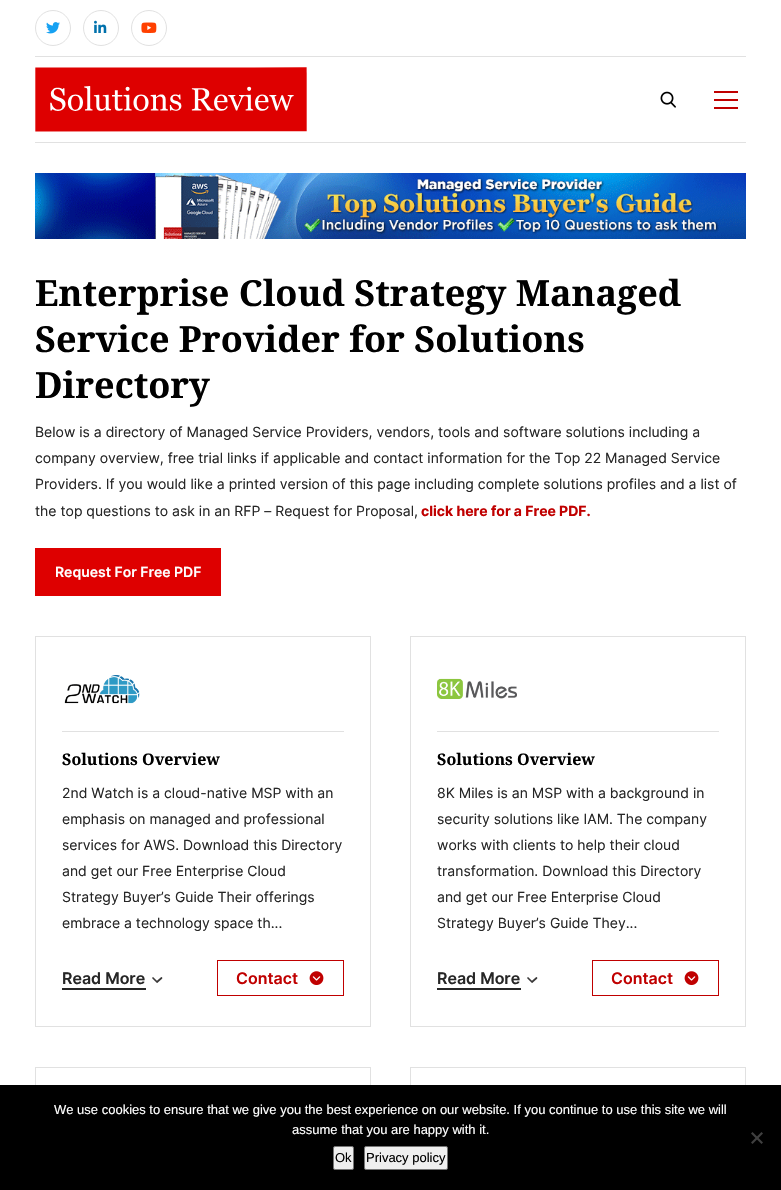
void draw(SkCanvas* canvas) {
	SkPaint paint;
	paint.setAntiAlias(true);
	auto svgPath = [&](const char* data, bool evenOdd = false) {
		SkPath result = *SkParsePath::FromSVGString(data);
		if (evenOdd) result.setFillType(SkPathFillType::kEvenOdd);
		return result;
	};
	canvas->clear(0xffffffff);
	paint.setStroke(true);
	paint.setStrokeWidth(1);
	paint.setColor(0xffe1e1e1);
	canvas->drawCircle(53, 28, 17.5, paint);
	canvas->drawImageRect(SkImages::DeferredFromEncodedData(SkData::MakeFromFileName("img1.png")), SkRect::MakeXYWH(46, 22, 14, 12), SkSamplingOptions());
	canvas->drawCircle(101, 28, 17.5, paint);
	canvas->drawImageRect(SkImages::DeferredFromEncodedData(SkData::MakeFromFileName("img2.png")), SkRect::MakeXYWH(94, 20, 13, 13), SkSamplingOptions());
	canvas->drawCircle(149, 28, 17.5, paint);
	canvas->drawImageRect(SkImages::DeferredFromEncodedData(SkData::MakeFromFileName("img3.png")), SkRect::MakeXYWH(141, 22, 16, 11), SkSamplingOptions());
	paint.setStroke(false);
	canvas->drawRect(SkRect::MakeXYWH(35, 56, 711, 1), paint);
	canvas->drawRect(SkRect::MakeXYWH(35, 142, 711, 1), paint);
	canvas->drawImageRect(SkImages::DeferredFromEncodedData(SkData::MakeFromFileName("img4.png")), SkRect::MakeXYWH(35, 67, 272, 65), SkSamplingOptions());
	canvas->drawImageRect(SkImages::DeferredFromEncodedData(SkData::MakeFromFileName("img5.png")), SkRect::MakeXYWH(660, 91, 16, 17), SkSamplingOptions());
	paint.setColor(0xffc00000);
	canvas->drawRect(SkRect::MakeXYWH(714, 91, 24, 2), paint);
	canvas->drawRect(SkRect::MakeXYWH(714, 99, 24, 2), paint);
	canvas->drawRect(SkRect::MakeXYWH(714, 107, 24, 2), paint);
	canvas->drawImageRect(SkImages::DeferredFromEncodedData(SkData::MakeFromFileName("img6.png")), SkRect::MakeXYWH(35, 173, 711, 66), SkSamplingOptions());
	SkFont f1(fontMgr->matchFamilyStyle("Noto Serif", SkFontStyle::Bold()), 36);
	f1.setSubpixel(true);
	paint.setColor(0xff000000);
	canvas->drawString("Enterprise Cloud Strategy Managed", 35, 306, f1, paint);
	canvas->drawString("Service Provider for Solutions", 35, 352, f1, paint);
	canvas->drawString("Directory", 35, 398, f1, paint);
	SkFont f2(fontMgr->matchFamilyStyle("Inter", SkFontStyle::Normal()), 14);
	f2.setSubpixel(true);
	paint.setColor(0xff262626);
	canvas->drawString("Below is a directory of Managed Service Providers, vendors, tools and software solutions including a", 35, 437, f2, paint);
	canvas->drawString("company overview, free trial links if applicable and contact information for the Top 22 Managed Service", 35, 463, f2, paint);
	canvas->drawString("Providers. If you would like a printed version of this page including complete solutions profiles and a list of", 35, 489, f2, paint);
	canvas->drawString("the top questions to ask in an RFP – Request for Proposal,", 35, 516, f2, paint);
	SkFont f3(fontMgr->matchFamilyStyle("Inter", SkFontStyle::Bold()), 14);
	f3.setSubpixel(true);
	paint.setColor(0xffc00000);
	canvas->drawString("click here for a Free PDF.", 421, 516, f3, paint);
	paint.setColor(0xffde0000);
	canvas->drawRect(SkRect::MakeXYWH(35, 548, 186, 48), paint);
	SkFont f4(fontMgr->matchFamilyStyle("Inter", SkFontStyle(600, SkFontStyle::kNormal_Width, SkFontStyle::kUpright_Slant)), 14);
	f4.setSubpixel(true);
	paint.setColor(0xffffffff);
	canvas->drawString("Request For Free PDF", 55, 577, f4, paint);
	paint.setStroke(true);
	paint.setColor(0xffe1e1e1);
	canvas->drawRect(SkRect::MakeXYWH(35.5, 636.5, 335, 390), paint);
	canvas->drawImageRect(SkImages::DeferredFromEncodedData(SkData::MakeFromFileName("img7.png")), SkRect::MakeXYWH(64, 675, 76, 29), SkSamplingOptions());
	paint.setStroke(false);
	canvas->drawRect(SkRect::MakeXYWH(62, 731, 282, 1), paint);
	SkFont f5(fontMgr->matchFamilyStyle("Noto Serif", SkFontStyle::Bold()), 16);
	f5.setSubpixel(true);
	paint.setColor(0xff000000);
	canvas->drawString("Solutions Overview", 62, 765, f5, paint);
	paint.setColor(0xff262626);
	canvas->drawString("2nd Watch is a cloud-native MSP with an", 62, 798, f2, paint);
	canvas->drawString("emphasis on managed and professional", 62, 824, f2, paint);
	canvas->drawString("services for AWS. Download this Directory", 62, 850, f2, paint);
	canvas->drawString("and get our Free Enterprise Cloud", 62, 876, f2, paint);
	canvas->drawString("Strategy Buyer’s Guide Their offerings", 62, 902, f2, paint);
	canvas->drawString("embrace a technology space th...", 62, 928, f2, paint);
	SkFont f6(fontMgr->matchFamilyStyle("Inter", SkFontStyle(600, SkFontStyle::kNormal_Width, SkFontStyle::kUpright_Slant)), 16);
	f6.setSubpixel(true);
	canvas->drawString("Read More", 62, 984, f6, paint);
	paint.setStroke(true);
	paint.setStrokeWidth(1.7);
	paint.setStrokeCap(SkPaint::kRound_Cap);
	paint.setStrokeJoin(SkPaint::kRound_Join);
	paint.setColor(0xff3a3939);
	canvas->drawPath(svgPath("M153 978L157 982L161.5 978"), paint);
	paint.setStroke(false);
	paint.setColor(0xff262626);
	canvas->drawRect(SkRect::MakeXYWH(62, 988, 84, 2), paint);
	paint.setStroke(true);
	paint.setStrokeWidth(1);
	paint.setStrokeCap(SkPaint::kButt_Cap);
	paint.setStrokeJoin(SkPaint::kMiter_Join);
	paint.setColor(0xffc00000);
	canvas->drawRect(SkRect::MakeXYWH(217.5, 960.5, 126, 35), paint);
	paint.setStroke(false);
	canvas->drawString("Contact", 236, 984, f6, paint);
	canvas->drawImageRect(SkImages::DeferredFromEncodedData(SkData::MakeFromFileName("img8.png")), SkRect::MakeXYWH(309, 971, 15, 14), SkSamplingOptions());
	paint.setStroke(true);
	paint.setColor(0xffe1e1e1);
	canvas->drawRect(SkRect::MakeXYWH(410.5, 636.5, 335, 390), paint);
	canvas->drawImageRect(SkImages::DeferredFromEncodedData(SkData::MakeFromFileName("img9.png")), SkRect::MakeXYWH(437, 678, 80, 21), SkSamplingOptions());
	paint.setStroke(false);
	canvas->drawRect(SkRect::MakeXYWH(437, 731, 282, 1), paint);
	paint.setColor(0xff000000);
	canvas->drawString("Solutions Overview", 437, 765, f5, paint);
	paint.setColor(0xff262626);
	canvas->drawString("8K Miles is an MSP with a background in", 437, 798, f2, paint);
	canvas->drawString("security solutions like IAM. The company", 437, 824, f2, paint);
	canvas->drawString("works with clients to help their cloud", 437, 850, f2, paint);
	canvas->drawString("transformation. Download this Directory", 437, 876, f2, paint);
	canvas->drawString("and get our Free Enterprise Cloud", 437, 902, f2, paint);
	canvas->drawString("Strategy Buyer’s Guide They...", 437, 928, f2, paint);
	canvas->drawString("Read More", 437, 984, f6, paint);
	paint.setStroke(true);
	paint.setStrokeWidth(1.7);
	paint.setStrokeCap(SkPaint::kRound_Cap);
	paint.setStrokeJoin(SkPaint::kRound_Join);
	paint.setColor(0xff3a3939);
	canvas->drawPath(svgPath("M528 978L532 982L536.5 978"), paint);
	paint.setStroke(false);
	paint.setColor(0xff262626);
	canvas->drawRect(SkRect::MakeXYWH(437, 988, 84, 2), paint);
	paint.setStroke(true);
	paint.setStrokeWidth(1);
	paint.setStrokeCap(SkPaint::kButt_Cap);
	paint.setStrokeJoin(SkPaint::kMiter_Join);
	paint.setColor(0xffc00000);
	canvas->drawRect(SkRect::MakeXYWH(592.5, 960.5, 126, 35), paint);
	paint.setStroke(false);
	canvas->drawString("Contact", 611, 984, f6, paint);
	canvas->drawImageRect(SkImages::DeferredFromEncodedData(SkData::MakeFromFileName("img8.png")), SkRect::MakeXYWH(684, 971, 15, 14), SkSamplingOptions());
	paint.setStroke(true);
	paint.setColor(0xffe1e1e1);
	canvas->drawRect(SkRect::MakeXYWH(35.5, 1067.5, 335, 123), paint);
	canvas->drawRect(SkRect::MakeXYWH(410.5, 1067.5, 335, 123), paint);
	paint.setStroke(false);
	paint.setColor(0xff000000);
	canvas->drawRect(SkRect::MakeXYWH(0, 1085, 781, 105), paint);
	SkFont f7(fontMgr->matchFamilyStyle("Liberation Sans", SkFontStyle::Normal()), 13);
	f7.setSubpixel(true);
	paint.setColor(0xffffffff);
	canvas->drawString("We use cookies to ensure that we give you the best experience on our website. If you continue to use this site we will", 54, 1114, f7, paint);
	canvas->drawString("assume that you are happy with it.", 292, 1134, f7, paint);
	paint.setColor(0xff404040);
	canvas->drawPath(svgPath("M761.5 1132L763 1133.5L752.5 1144L751 1142.5Z"), paint);
	canvas->drawPath(svgPath("M751 1133.5L752.5 1132L763 1142.5L761.5 1144Z"), paint);
	paint.setColor(0xffefefef);
	canvas->drawRoundRect(SkRect::MakeXYWH(333.5, 1146.5, 20, 23), 1.5, 1.5, paint);
	paint.setStroke(true);
	paint.setColor(0xff767676);
	canvas->drawRoundRect(SkRect::MakeXYWH(333.5, 1146.5, 20, 23), 1.5, 1.5, paint);
	paint.setStroke(false);
	paint.setColor(0xff000000);
	canvas->drawString("Ok", 335, 1162, f7, paint);
	paint.setColor(0xffefefef);
	canvas->drawRoundRect(SkRect::MakeXYWH(364.5, 1146.5, 83, 23), 1.5, 1.5, paint);
	paint.setStroke(true);
	paint.setColor(0xff767676);
	canvas->drawRoundRect(SkRect::MakeXYWH(364.5, 1146.5, 83, 23), 1.5, 1.5, paint);
	paint.setStroke(false);
	paint.setColor(0xff000000);
	canvas->drawString("Privacy policy", 366, 1162, f7, paint);
}
